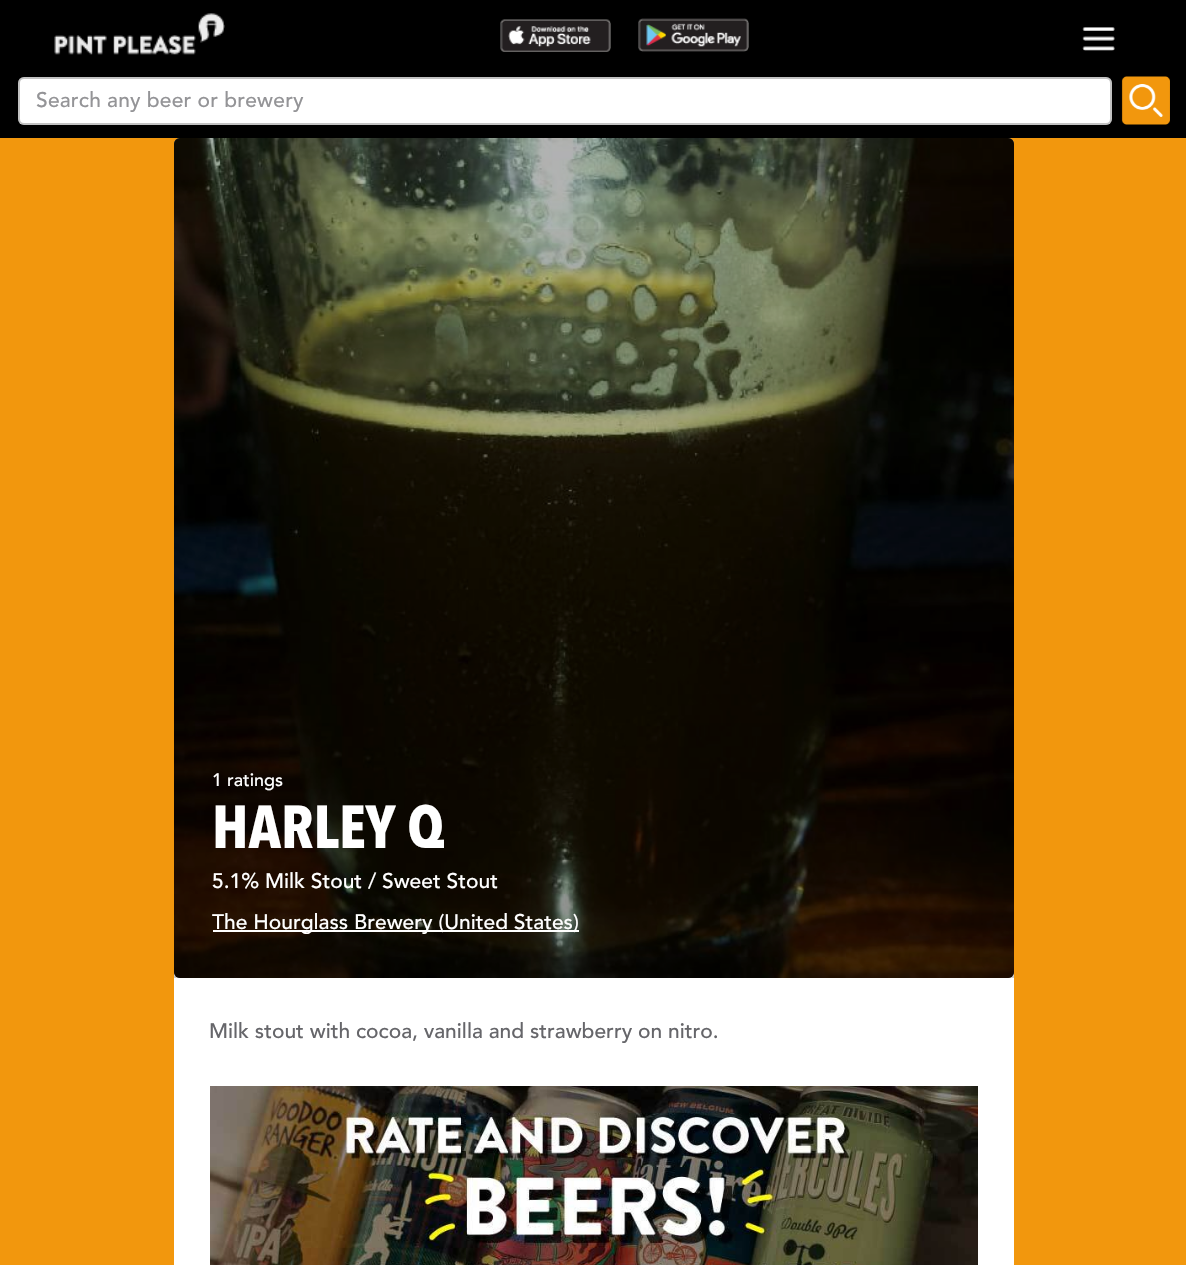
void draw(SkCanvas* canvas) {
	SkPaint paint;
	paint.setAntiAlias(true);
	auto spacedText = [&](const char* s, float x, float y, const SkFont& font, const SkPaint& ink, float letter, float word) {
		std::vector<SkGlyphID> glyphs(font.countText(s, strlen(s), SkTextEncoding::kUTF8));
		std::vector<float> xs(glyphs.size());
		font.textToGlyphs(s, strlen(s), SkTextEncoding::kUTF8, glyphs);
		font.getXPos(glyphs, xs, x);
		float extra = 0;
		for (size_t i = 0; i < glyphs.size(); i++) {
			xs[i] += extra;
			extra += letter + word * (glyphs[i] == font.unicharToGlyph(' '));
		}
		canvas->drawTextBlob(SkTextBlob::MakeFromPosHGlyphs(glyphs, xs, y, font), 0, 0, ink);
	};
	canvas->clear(0xfff2970d);
	paint.setColor(0xff000000);
	canvas->drawRect(SkRect::MakeXYWH(0, 0, 1186, 138), paint);
	canvas->drawImageRect(SkImages::DeferredFromEncodedData(SkData::MakeFromFileName("img1.png")), SkRect::MakeXYWH(54, 13, 171, 42), SkSamplingOptions());
	canvas->drawImageRect(SkImages::DeferredFromEncodedData(SkData::MakeFromFileName("img2.png")), SkRect::MakeXYWH(500, 19, 111, 33), SkSamplingOptions());
	canvas->drawImageRect(SkImages::DeferredFromEncodedData(SkData::MakeFromFileName("img3.png")), SkRect::MakeXYWH(638, 18, 111, 34), SkSamplingOptions());
	canvas->drawImageRect(SkImages::DeferredFromEncodedData(SkData::MakeFromFileName("img4.png")), SkRect::MakeXYWH(1082, 27, 33, 24), SkSamplingOptions());
	paint.setColor(0xffffffff);
	canvas->drawRoundRect(SkRect::MakeXYWH(18, 77, 1094, 48), 6, 6, paint);
	paint.setStroke(true);
	paint.setStrokeWidth(2);
	paint.setColor(0x3d000000);
	canvas->drawRoundRect(SkRect::MakeXYWH(19, 78, 1092, 46), 5, 5, paint);
	SkFont f1(fontMgr->matchFamilyStyle("Avenir", SkFontStyle(500, SkFontStyle::kNormal_Width, SkFontStyle::kUpright_Slant)), 21);
	f1.setSubpixel(true);
	paint.setStroke(false);
	paint.setColor(0xff949497);
	spacedText("Search any beer or brewery", 36, 107, f1, paint, 0.2, 0);
	canvas->drawImageRect(SkImages::DeferredFromEncodedData(SkData::MakeFromFileName("img5.png")), SkRect::MakeXYWH(1121, 76, 49, 49), SkSamplingOptions());
	paint.setColor(0xffffffff);
	canvas->drawRoundRect(SkRect::MakeXYWH(174, 138, 840, 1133), 6, 6, paint);
	paint.setColor(0xff000000);
	canvas->drawRoundRect(SkRect::MakeXYWH(174, 138, 840, 840), 6, 6, paint);
	canvas->drawImageRect(SkImages::DeferredFromEncodedData(SkData::MakeFromFileName("img6.png")), SkRect::MakeXYWH(174, 138, 840, 840), SkSamplingOptions());
	{
		const SkColor colors[] = {0x00000000, 0x33000000};
		const float stops[] = {0, 1};
		const SkPoint ends[] = {{594, 138}, {594, 978}};
		paint.setShader(SkGradientShader::MakeLinear(ends, colors, stops, 2, SkTileMode::kClamp));
		paint.setAlpha(255);
	}
	canvas->drawRect(SkRect::MakeXYWH(174, 229, 840, 749), paint);
	SkFont f2(fontMgr->matchFamilyStyle("Avenir", SkFontStyle(500, SkFontStyle::kNormal_Width, SkFontStyle::kUpright_Slant)), 18);
	f2.setSubpixel(true);
	paint.setShader(nullptr);
	paint.setColor(0xffffffff);
	canvas->drawString("1 ratings", 212, 786, f2, paint);
	SkFont f3(fontMgr->matchFamilyStyle("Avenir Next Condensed", SkFontStyle::Bold()), 60);
	f3.setSubpixel(true);
	canvas->drawString("HARLEY Q", 212, 848, f3, paint);
	canvas->drawString("5.1% Milk Stout / Sweet Stout", 212, 888, f1, paint);
	canvas->drawRect(SkRect::MakeXYWH(213, 930, 366, 2), paint);
	canvas->drawString("The Hourglass Brewery (United States)", 212, 929, f1, paint);
	paint.setColor(0xff66666a);
	canvas->drawString("Milk stout with cocoa, vanilla and strawberry on nitro.", 209, 1038, f1, paint);
	canvas->drawImageRect(SkImages::DeferredFromEncodedData(SkData::MakeFromFileName("img7.png")), SkRect::MakeXYWH(210, 1086, 768, 179), SkSamplingOptions());
}
